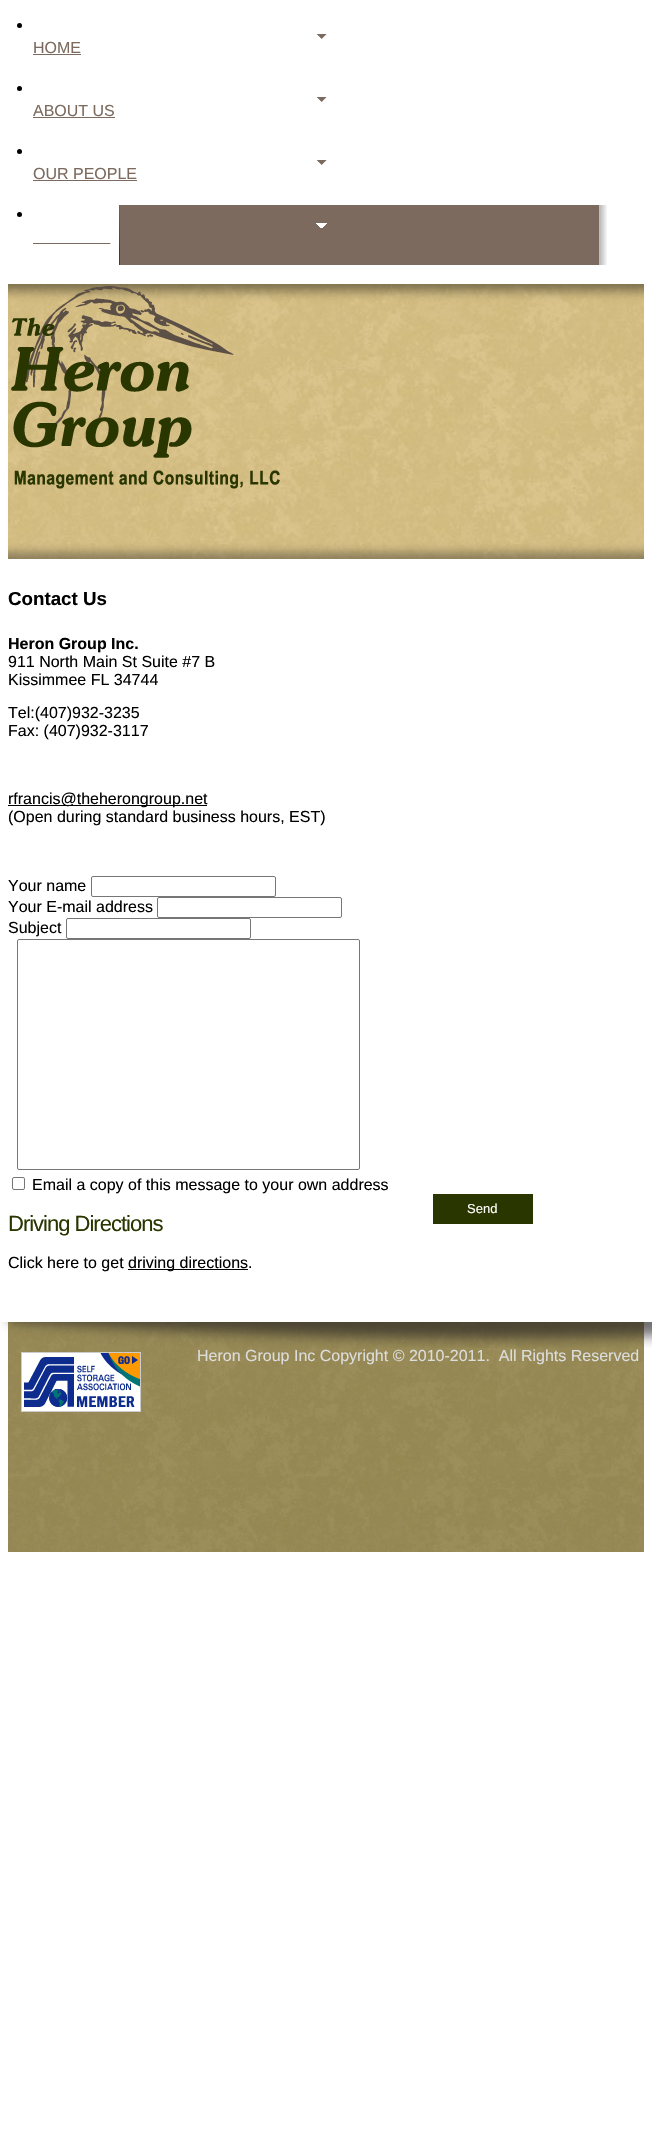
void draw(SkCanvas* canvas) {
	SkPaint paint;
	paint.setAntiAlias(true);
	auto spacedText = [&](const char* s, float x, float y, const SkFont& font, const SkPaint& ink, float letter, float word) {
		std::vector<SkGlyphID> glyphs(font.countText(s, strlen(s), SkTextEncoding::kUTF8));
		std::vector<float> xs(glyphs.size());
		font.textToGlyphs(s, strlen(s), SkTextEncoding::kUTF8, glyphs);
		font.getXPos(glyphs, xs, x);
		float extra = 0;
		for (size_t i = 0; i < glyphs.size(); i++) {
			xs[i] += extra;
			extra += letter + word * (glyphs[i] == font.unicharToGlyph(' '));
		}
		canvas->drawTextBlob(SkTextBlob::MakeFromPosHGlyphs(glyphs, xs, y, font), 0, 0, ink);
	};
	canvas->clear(0xffffffff);
	paint.setColor(0xff000000);
	canvas->drawCircle(19.5, 25.5, 2.5, paint);
	canvas->drawImageRect(SkImages::DeferredFromEncodedData(SkData::MakeFromFileName("img1.png")), SkRect::MakeXYWH(33, 34, 294, 21), SkSamplingOptions());
	SkFont f1(fontMgr->matchFamilyStyle("Liberation Sans", SkFontStyle::Normal()), 16);
	f1.setSubpixel(true);
	paint.setColor(0xff7b6a5d);
	canvas->drawString("HOME", 33, 53, f1, paint);
	paint.setColor(0xff000000);
	canvas->drawCircle(19.5, 88.5, 2.5, paint);
	canvas->drawImageRect(SkImages::DeferredFromEncodedData(SkData::MakeFromFileName("img2.png")), SkRect::MakeXYWH(317, 97, 10, 5), SkSamplingOptions());
	paint.setColor(0xff7b6a5d);
	canvas->drawString("ABOUT US", 33, 116, f1, paint);
	canvas->drawRect(SkRect::MakeXYWH(33, 117, 82, 1), paint);
	paint.setColor(0xff000000);
	canvas->drawCircle(19.5, 151.5, 2.5, paint);
	canvas->drawImageRect(SkImages::DeferredFromEncodedData(SkData::MakeFromFileName("img3.png")), SkRect::MakeXYWH(33, 160, 294, 21), SkSamplingOptions());
	paint.setColor(0xff7b6a5d);
	canvas->drawString("OUR PEOPLE", 33, 179, f1, paint);
	canvas->drawImageRect(SkImages::DeferredFromEncodedData(SkData::MakeFromFileName("img4.png")), SkRect::MakeXYWH(119, 205, 488, 60), SkSamplingOptions());
	paint.setColor(0xff000000);
	canvas->drawCircle(19.5, 214.5, 2.5, paint);
	canvas->drawImageRect(SkImages::DeferredFromEncodedData(SkData::MakeFromFileName("img5.png")), SkRect::MakeXYWH(33, 223, 294, 21), SkSamplingOptions());
	canvas->drawImageRect(SkImages::DeferredFromEncodedData(SkData::MakeFromFileName("img6.png")), SkRect::MakeXYWH(8, 284, 636, 275), SkSamplingOptions());
	canvas->drawImageRect(SkImages::DeferredFromEncodedData(SkData::MakeFromFileName("img7.png")), SkRect::MakeXYWH(11, 286, 269, 203), SkSamplingOptions());
	SkFont f2(fontMgr->matchFamilyStyle("Liberation Sans", SkFontStyle::Bold()), 18.75);
	f2.setSubpixel(true);
	canvas->drawString("Contact Us", 8, 605, f2, paint);
	SkFont f3(fontMgr->matchFamilyStyle("Liberation Sans", SkFontStyle::Bold()), 16);
	f3.setSubpixel(true);
	canvas->drawString("Heron Group Inc.", 8, 649, f3, paint);
	canvas->drawString("911 North Main St Suite #7 B", 8, 667, f1, paint);
	canvas->drawString("Kissimmee FL 34744", 8, 685, f1, paint);
	canvas->drawString("Tel:(407)932-3235", 8, 718, f1, paint);
	canvas->drawString("Fax: (407)932-3117", 8, 736, f1, paint);
	canvas->drawRect(SkRect::MakeXYWH(8, 805, 199, 1), paint);
	canvas->drawString("rfrancis@theherongroup.net", 8, 804, f1, paint);
	canvas->drawString("(Open during standard business hours, EST)", 8, 822, f1, paint);
	canvas->drawString("Your name", 8, 891, f1, paint);
	paint.setStroke(true);
	paint.setStrokeWidth(1);
	paint.setColor(0xff767676);
	canvas->drawRoundRect(SkRect::MakeXYWH(91.5, 876.5, 184, 20), 1.5, 1.5, paint);
	paint.setStroke(false);
	paint.setColor(0xff000000);
	canvas->drawString("Your E-mail address", 8, 912, f1, paint);
	paint.setStroke(true);
	paint.setColor(0xff767676);
	canvas->drawRoundRect(SkRect::MakeXYWH(157.5, 897.5, 184, 20), 1.5, 1.5, paint);
	paint.setStroke(false);
	paint.setColor(0xff000000);
	canvas->drawString("Subject", 8, 933, f1, paint);
	paint.setStroke(true);
	paint.setColor(0xff767676);
	canvas->drawRoundRect(SkRect::MakeXYWH(66.5, 918.5, 184, 20), 1.5, 1.5, paint);
	canvas->drawRoundRect(SkRect::MakeXYWH(17.5, 939.5, 342, 230), 1.5, 1.5, paint);
	canvas->drawRoundRect(SkRect::MakeXYWH(12.5, 1177.5, 12, 12), 1.5, 1.5, paint);
	paint.setStroke(false);
	paint.setColor(0xff000000);
	canvas->drawString("Email a copy of this message to your own address", 32, 1190, f1, paint);
	paint.setColor(0xff2a3600);
	canvas->drawRect(SkRect::MakeXYWH(433, 1194, 100, 30), paint);
	SkFont f4(fontMgr->matchFamilyStyle("Liberation Sans", SkFontStyle::Normal()), 13);
	f4.setSubpixel(true);
	paint.setColor(0xffffffff);
	canvas->drawString("Send", 467, 1213, f4, paint);
	SkFont f5(fontMgr->matchFamilyStyle("Liberation Sans", SkFontStyle::Normal()), 22);
	f5.setSubpixel(true);
	paint.setColor(0xff2a3600);
	spacedText("Driving Directions", 8, 1231, f5, paint, -1, 0);
	paint.setColor(0xff000000);
	canvas->drawString("Click here to get", 8, 1268, f1, paint);
	canvas->drawRect(SkRect::MakeXYWH(128, 1269, 120, 1), paint);
	canvas->drawString("driving directions.", 128, 1268, f1, paint);
	canvas->drawImageRect(SkImages::DeferredFromEncodedData(SkData::MakeFromFileName("img8.png")), SkRect::MakeXYWH(8, 1322, 636, 230), SkSamplingOptions());
	canvas->drawImageRect(SkImages::DeferredFromEncodedData(SkData::MakeFromFileName("img9.png")), SkRect::MakeXYWH(0, 1322, 652, 26), SkSamplingOptions());
	canvas->drawImageRect(SkImages::DeferredFromEncodedData(SkData::MakeFromFileName("img10.png")), SkRect::MakeXYWH(21, 1352, 120, 60), SkSamplingOptions());
	paint.setColor(0xffdddddd);
	canvas->drawString("Heron Group Inc Copyright © 2010-2011.  All Rights Reserved", 197, 1361, f1, paint);
}
